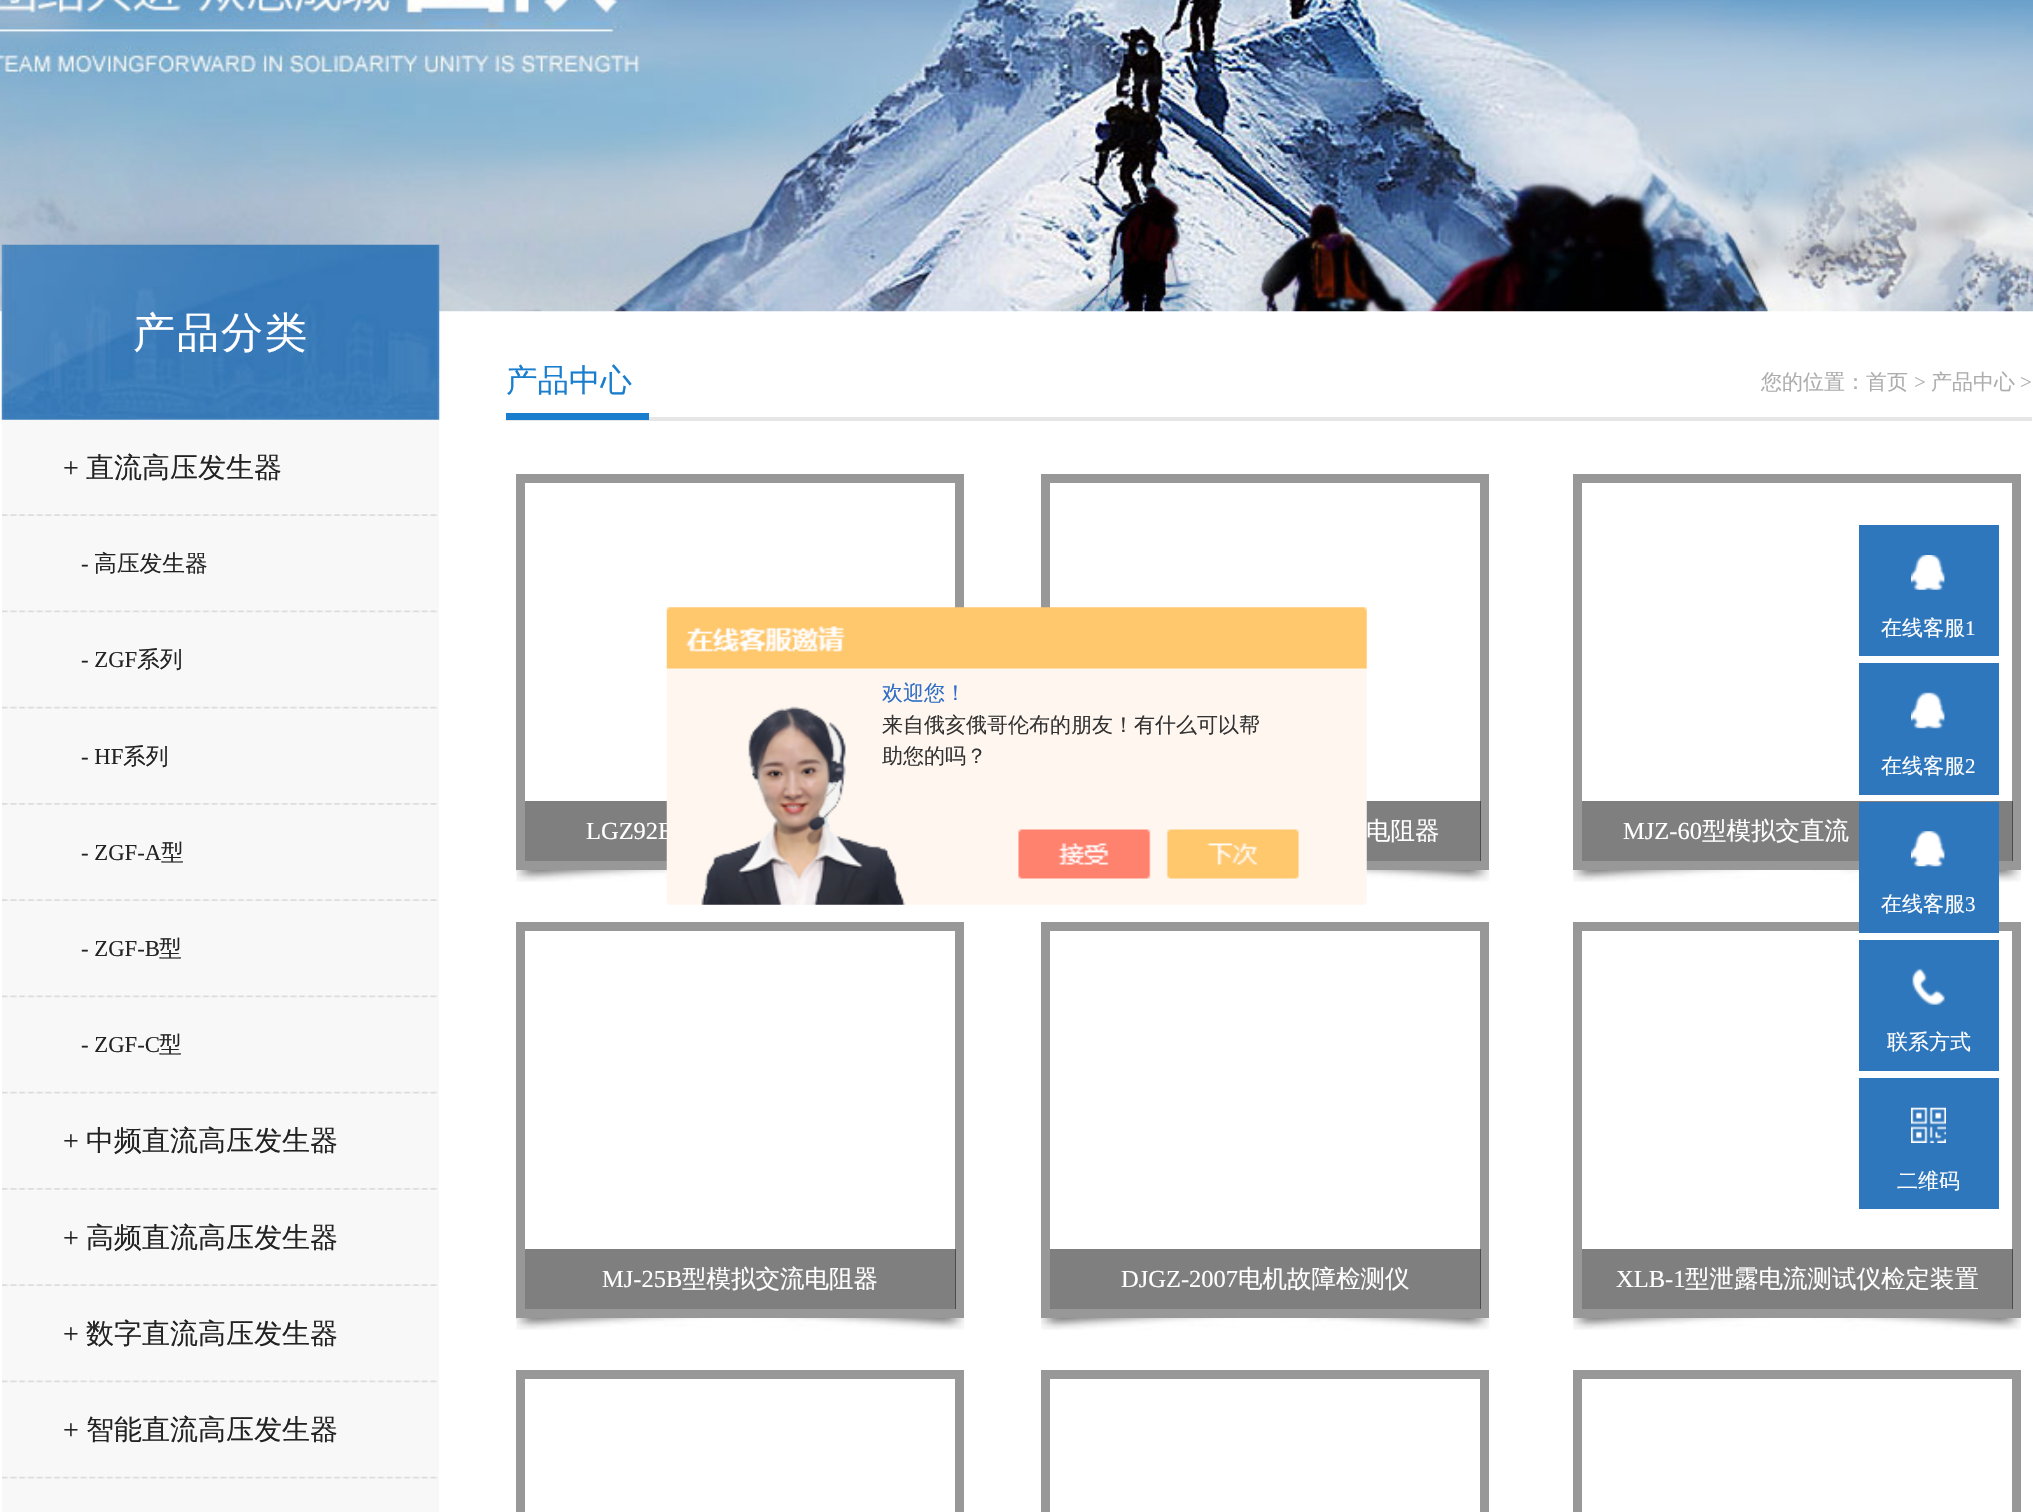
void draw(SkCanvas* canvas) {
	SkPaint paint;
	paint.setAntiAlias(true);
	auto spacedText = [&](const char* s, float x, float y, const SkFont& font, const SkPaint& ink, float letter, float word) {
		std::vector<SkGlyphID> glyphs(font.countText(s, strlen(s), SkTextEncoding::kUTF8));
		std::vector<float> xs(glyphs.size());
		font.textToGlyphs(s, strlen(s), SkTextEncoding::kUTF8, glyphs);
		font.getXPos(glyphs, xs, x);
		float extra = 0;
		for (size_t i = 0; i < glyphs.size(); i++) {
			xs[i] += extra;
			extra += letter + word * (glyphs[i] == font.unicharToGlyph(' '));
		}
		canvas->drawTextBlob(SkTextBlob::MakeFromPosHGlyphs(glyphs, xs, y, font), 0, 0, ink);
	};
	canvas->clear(0xffffffff);
	canvas->drawImageRect(SkImages::DeferredFromEncodedData(SkData::MakeFromFileName("img1.png")), SkRect::MakeXYWH(0, 0, 2033, 312), SkSamplingOptions());
	paint.setColor(0xfff8f8f8);
	canvas->drawRect(SkRect::MakeXYWH(2, 419, 437, 1093), paint);
	canvas->drawImageRect(SkImages::DeferredFromEncodedData(SkData::MakeFromFileName("img2.png")), SkRect::MakeXYWH(1, 244, 439, 176), SkSamplingOptions());
	SkFont f1(fontMgr->matchFamilyStyle("WenQuanYi Zen Hei", SkFontStyle(500, SkFontStyle::kNormal_Width, SkFontStyle::kUpright_Slant)), 42);
	f1.setSubpixel(true);
	paint.setColor(0xffffffff);
	spacedText("产品分类", 133, 347, f1, paint, 2, 0);
	canvas->drawImageRect(SkImages::DeferredFromEncodedData(SkData::MakeFromFileName("img3.png")), SkRect::MakeXYWH(2, 514, 436, 2), SkSamplingOptions());
	SkFont f2(fontMgr->matchFamilyStyle("Liberation Serif", SkFontStyle::Normal()), 28);
	f2.setSubpixel(true);
	paint.setColor(0xff222322);
	canvas->drawString("+", 63, 477, f2, paint);
	SkFont f3(fontMgr->matchFamilyStyle("WenQuanYi Zen Hei", SkFontStyle(500, SkFontStyle::kNormal_Width, SkFontStyle::kUpright_Slant)), 28);
	f3.setSubpixel(true);
	canvas->drawString("直流高压发生器", 86, 477, f3, paint);
	canvas->drawImageRect(SkImages::DeferredFromEncodedData(SkData::MakeFromFileName("img4.png")), SkRect::MakeXYWH(2, 610, 436, 3), SkSamplingOptions());
	SkFont f4(fontMgr->matchFamilyStyle("Liberation Serif", SkFontStyle::Normal()), 22.75);
	f4.setSubpixel(true);
	canvas->drawString("-", 81, 571, f4, paint);
	SkFont f5(fontMgr->matchFamilyStyle("WenQuanYi Zen Hei", SkFontStyle(500, SkFontStyle::kNormal_Width, SkFontStyle::kUpright_Slant)), 22.75);
	f5.setSubpixel(true);
	canvas->drawString("高压发生器", 94, 571, f5, paint);
	canvas->drawImageRect(SkImages::DeferredFromEncodedData(SkData::MakeFromFileName("img5.png")), SkRect::MakeXYWH(2, 706, 436, 3), SkSamplingOptions());
	canvas->drawString("- ZGF", 81, 667, f4, paint);
	canvas->drawString("系列", 137, 667, f5, paint);
	canvas->drawImageRect(SkImages::DeferredFromEncodedData(SkData::MakeFromFileName("img6.png")), SkRect::MakeXYWH(2, 803, 436, 2), SkSamplingOptions());
	canvas->drawString("- HF", 81, 764, f4, paint);
	canvas->drawString("系列", 123, 764, f5, paint);
	canvas->drawImageRect(SkImages::DeferredFromEncodedData(SkData::MakeFromFileName("img3.png")), SkRect::MakeXYWH(2, 899, 436, 2), SkSamplingOptions());
	canvas->drawString("- ZGF-A", 81, 860, f4, paint);
	canvas->drawString("型", 161, 860, f5, paint);
	canvas->drawImageRect(SkImages::DeferredFromEncodedData(SkData::MakeFromFileName("img4.png")), SkRect::MakeXYWH(2, 995, 436, 3), SkSamplingOptions());
	canvas->drawString("- ZGF-B", 81, 956, f4, paint);
	canvas->drawString("型", 159, 956, f5, paint);
	canvas->drawImageRect(SkImages::DeferredFromEncodedData(SkData::MakeFromFileName("img5.png")), SkRect::MakeXYWH(2, 1091, 436, 3), SkSamplingOptions());
	canvas->drawString("- ZGF-C", 81, 1052, f4, paint);
	canvas->drawString("型", 159, 1052, f5, paint);
	canvas->drawImageRect(SkImages::DeferredFromEncodedData(SkData::MakeFromFileName("img6.png")), SkRect::MakeXYWH(2, 1188, 436, 2), SkSamplingOptions());
	canvas->drawString("+", 63, 1150, f2, paint);
	canvas->drawString("中频直流高压发生器", 86, 1150, f3, paint);
	canvas->drawImageRect(SkImages::DeferredFromEncodedData(SkData::MakeFromFileName("img3.png")), SkRect::MakeXYWH(2, 1284, 436, 2), SkSamplingOptions());
	canvas->drawString("+", 63, 1247, f2, paint);
	canvas->drawString("高频直流高压发生器", 86, 1247, f3, paint);
	canvas->drawImageRect(SkImages::DeferredFromEncodedData(SkData::MakeFromFileName("img4.png")), SkRect::MakeXYWH(2, 1380, 436, 3), SkSamplingOptions());
	canvas->drawString("+", 63, 1343, f2, paint);
	canvas->drawString("数字直流高压发生器", 86, 1343, f3, paint);
	canvas->drawImageRect(SkImages::DeferredFromEncodedData(SkData::MakeFromFileName("img5.png")), SkRect::MakeXYWH(2, 1476, 436, 3), SkSamplingOptions());
	canvas->drawString("+", 63, 1439, f2, paint);
	canvas->drawString("智能直流高压发生器", 86, 1439, f3, paint);
	paint.setColor(0xffe5e6e5);
	canvas->drawRect(SkRect::MakeXYWH(506, 417, 1526, 4), paint);
	paint.setColor(0xff1a7ece);
	canvas->drawRect(SkRect::MakeXYWH(506, 413, 143, 7), paint);
	SkFont f6(fontMgr->matchFamilyStyle("WenQuanYi Zen Hei", SkFontStyle(500, SkFontStyle::kNormal_Width, SkFontStyle::kUpright_Slant)), 31.5);
	f6.setSubpixel(true);
	canvas->drawString("产品中心", 506, 391, f6, paint);
	SkFont f7(fontMgr->matchFamilyStyle("WenQuanYi Zen Hei", SkFontStyle(500, SkFontStyle::kNormal_Width, SkFontStyle::kUpright_Slant)), 21);
	f7.setSubpixel(true);
	paint.setColor(0xffadadad);
	canvas->drawString("您的位置：首页", 1761, 389, f7, paint);
	SkFont f8(fontMgr->matchFamilyStyle("Liberation Serif", SkFontStyle::Normal()), 21);
	f8.setSubpixel(true);
	canvas->drawString(">", 1914, 389, f8, paint);
	canvas->drawString("产品中心", 1931, 389, f7, paint);
	canvas->drawString(">", 2020, 389, f8, paint);
	canvas->drawImageRect(SkImages::DeferredFromEncodedData(SkData::MakeFromFileName("img7.png")), SkRect::MakeXYWH(516, 870, 151, 12), SkSamplingOptions());
	paint.setStroke(true);
	paint.setStrokeWidth(9);
	paint.setColor(0xff989898);
	canvas->drawRect(SkRect::MakeXYWH(520.5, 478.5, 439, 387), paint);
	paint.setStroke(false);
	paint.setColor(0x80000000);
	canvas->drawRect(SkRect::MakeXYWH(525, 801, 142, 60), paint);
	SkFont f9(fontMgr->matchFamilyStyle("Liberation Serif", SkFontStyle::Normal()), 24.5);
	f9.setSubpixel(true);
	paint.setColor(0xffffffff);
	canvas->drawString("LGZ92E", 586, 839, f9, paint);
	canvas->drawImageRect(SkImages::DeferredFromEncodedData(SkData::MakeFromFileName("img8.png")), SkRect::MakeXYWH(1366, 869, 124, 13), SkSamplingOptions());
	paint.setStroke(true);
	paint.setColor(0xff989898);
	canvas->drawRect(SkRect::MakeXYWH(1045.5, 478.5, 439, 387), paint);
	paint.setStroke(false);
	paint.setColor(0x80000000);
	canvas->drawRect(SkRect::MakeXYWH(1366, 801, 115, 60), paint);
	SkFont f10(fontMgr->matchFamilyStyle("WenQuanYi Zen Hei", SkFontStyle(500, SkFontStyle::kNormal_Width, SkFontStyle::kUpright_Slant)), 24.5);
	f10.setSubpixel(true);
	paint.setColor(0xffffffff);
	canvas->drawString("电阻器", 1366, 839, f10, paint);
	canvas->drawImageRect(SkImages::DeferredFromEncodedData(SkData::MakeFromFileName("img9.png")), SkRect::MakeXYWH(1573, 870, 448, 12), SkSamplingOptions());
	paint.setStroke(true);
	paint.setColor(0xff989898);
	canvas->drawRect(SkRect::MakeXYWH(1577.5, 478.5, 439, 387), paint);
	paint.setStroke(false);
	paint.setColor(0x80000000);
	canvas->drawRect(SkRect::MakeXYWH(1582, 801, 431, 60), paint);
	paint.setColor(0xffffffff);
	canvas->drawString("MJZ-60", 1623, 839, f9, paint);
	canvas->drawString("型模拟交直流", 1702, 839, f10, paint);
	canvas->drawImageRect(SkImages::DeferredFromEncodedData(SkData::MakeFromFileName("img10.png")), SkRect::MakeXYWH(516, 1317, 449, 13), SkSamplingOptions());
	paint.setStroke(true);
	paint.setColor(0xff989898);
	canvas->drawRect(SkRect::MakeXYWH(520.5, 926.5, 439, 387), paint);
	paint.setStroke(false);
	paint.setColor(0x80000000);
	canvas->drawRect(SkRect::MakeXYWH(525, 1249, 431, 60), paint);
	paint.setColor(0xffffffff);
	canvas->drawString("MJ-25B", 602, 1287, f9, paint);
	canvas->drawString("型模拟交流电阻器", 682, 1287, f10, paint);
	canvas->drawImageRect(SkImages::DeferredFromEncodedData(SkData::MakeFromFileName("img11.png")), SkRect::MakeXYWH(1041, 1317, 449, 13), SkSamplingOptions());
	paint.setStroke(true);
	paint.setColor(0xff989898);
	canvas->drawRect(SkRect::MakeXYWH(1045.5, 926.5, 439, 387), paint);
	paint.setStroke(false);
	paint.setColor(0x80000000);
	canvas->drawRect(SkRect::MakeXYWH(1050, 1249, 431, 60), paint);
	paint.setColor(0xffffffff);
	canvas->drawString("DJGZ-2007", 1121, 1287, f9, paint);
	canvas->drawString("电机故障检测仪", 1238, 1287, f10, paint);
	canvas->drawImageRect(SkImages::DeferredFromEncodedData(SkData::MakeFromFileName("img9.png")), SkRect::MakeXYWH(1573, 1318, 448, 12), SkSamplingOptions());
	paint.setStroke(true);
	paint.setColor(0xff989898);
	canvas->drawRect(SkRect::MakeXYWH(1577.5, 926.5, 439, 387), paint);
	paint.setStroke(false);
	paint.setColor(0x80000000);
	canvas->drawRect(SkRect::MakeXYWH(1582, 1249, 431, 60), paint);
	paint.setColor(0xffffffff);
	canvas->drawString("XLB-1", 1616, 1287, f9, paint);
	canvas->drawString("型泄露电流测试仪检定装置", 1685, 1287, f10, paint);
	paint.setStroke(true);
	paint.setColor(0xff989898);
	canvas->drawRect(SkRect::MakeXYWH(520.5, 1374.5, 439, 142), paint);
	canvas->drawRect(SkRect::MakeXYWH(1045.5, 1374.5, 439, 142), paint);
	canvas->drawRect(SkRect::MakeXYWH(1577.5, 1374.5, 439, 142), paint);
	canvas->drawImageRect(SkImages::DeferredFromEncodedData(SkData::MakeFromFileName("img12.png")), SkRect::MakeXYWH(666, 607, 701, 298), SkSamplingOptions());
	paint.setStroke(false);
	paint.setColor(0xff2e6ec6);
	canvas->drawString("欢迎您！", 882, 700, f7, paint);
	paint.setColor(0xff333333);
	canvas->drawString("来自俄亥俄哥伦布的朋友！有什么可以帮", 882, 732, f7, paint);
	canvas->drawString("助您的吗？", 882, 763, f7, paint);
	paint.setColor(0xff2f77bd);
	canvas->drawRect(SkRect::MakeXYWH(1859, 525, 140, 131), paint);
	canvas->drawImageRect(SkImages::DeferredFromEncodedData(SkData::MakeFromFileName("img13.png")), SkRect::MakeXYWH(1911, 555, 34, 35), SkSamplingOptions());
	paint.setColor(0xffffffff);
	canvas->drawString("在线客服", 1881, 635, f7, paint);
	canvas->drawString("1", 1965, 635, f8, paint);
	paint.setColor(0xff2f77bd);
	canvas->drawRect(SkRect::MakeXYWH(1859, 663, 140, 132), paint);
	canvas->drawImageRect(SkImages::DeferredFromEncodedData(SkData::MakeFromFileName("img14.png")), SkRect::MakeXYWH(1911, 692, 34, 37), SkSamplingOptions());
	paint.setColor(0xffffffff);
	canvas->drawString("在线客服", 1881, 773, f7, paint);
	canvas->drawString("2", 1965, 773, f8, paint);
	paint.setColor(0xff2f77bd);
	canvas->drawRect(SkRect::MakeXYWH(1859, 802, 140, 131), paint);
	canvas->drawImageRect(SkImages::DeferredFromEncodedData(SkData::MakeFromFileName("img15.png")), SkRect::MakeXYWH(1911, 831, 34, 36), SkSamplingOptions());
	paint.setColor(0xffffffff);
	canvas->drawString("在线客服", 1881, 911, f7, paint);
	canvas->drawString("3", 1965, 911, f8, paint);
	paint.setColor(0xff2f77bd);
	canvas->drawRect(SkRect::MakeXYWH(1859, 940, 140, 131), paint);
	canvas->drawImageRect(SkImages::DeferredFromEncodedData(SkData::MakeFromFileName("img16.png")), SkRect::MakeXYWH(1912, 968, 33, 37), SkSamplingOptions());
	paint.setColor(0xffffffff);
	canvas->drawString("联系方式", 1887, 1049, f7, paint);
	paint.setColor(0xff2f77bd);
	canvas->drawRect(SkRect::MakeXYWH(1859, 1078, 140, 131), paint);
	canvas->drawImageRect(SkImages::DeferredFromEncodedData(SkData::MakeFromFileName("img17.png")), SkRect::MakeXYWH(1911, 1107, 35, 36), SkSamplingOptions());
	paint.setColor(0xffffffff);
	canvas->drawString("二维码", 1897, 1188, f7, paint);
}
